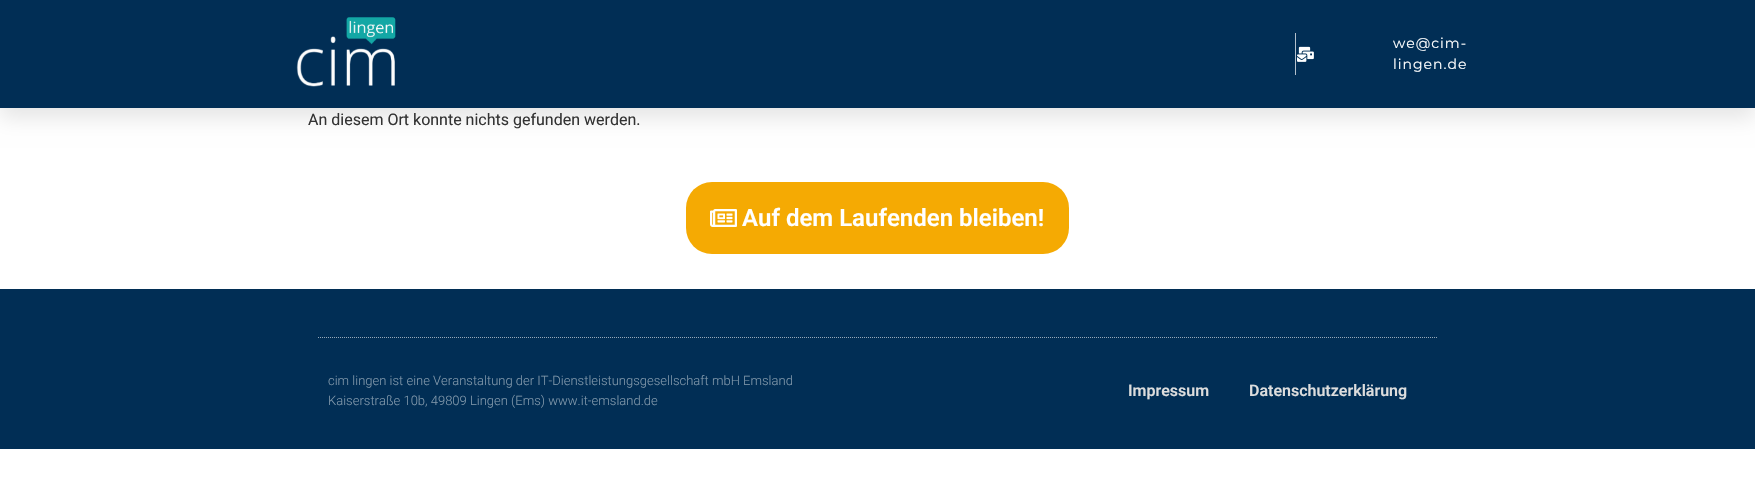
void draw(SkCanvas* canvas) {
	SkPaint paint;
	paint.setAntiAlias(true);
	auto spacedText = [&](const char* s, float x, float y, const SkFont& font, const SkPaint& ink, float letter, float word) {
		std::vector<SkGlyphID> glyphs(font.countText(s, strlen(s), SkTextEncoding::kUTF8));
		std::vector<float> xs(glyphs.size());
		font.textToGlyphs(s, strlen(s), SkTextEncoding::kUTF8, glyphs);
		font.getXPos(glyphs, xs, x);
		float extra = 0;
		for (size_t i = 0; i < glyphs.size(); i++) {
			xs[i] += extra;
			extra += letter + word * (glyphs[i] == font.unicharToGlyph(' '));
		}
		canvas->drawTextBlob(SkTextBlob::MakeFromPosHGlyphs(glyphs, xs, y, font), 0, 0, ink);
	};
	auto svgPath = [&](const char* data, bool evenOdd = false) {
		SkPath result = *SkParsePath::FromSVGString(data);
		if (evenOdd) result.setFillType(SkPathFillType::kEvenOdd);
		return result;
	};
	canvas->clear(0xffffffff);
	paint.setColor(0x1a000000);
	paint.setMaskFilter(SkMaskFilter::MakeBlur(kNormal_SkBlurStyle, 10));
	canvas->drawRect(SkRect::MakeXYWH(0, 10, 1755, 108), paint);
	paint.setMaskFilter(nullptr);
	paint.setColor(0xff012e55);
	canvas->drawRect(SkRect::MakeXYWH(0, 0, 1755, 108), paint);
	canvas->drawImageRect(SkImages::DeferredFromEncodedData(SkData::MakeFromFileName("img1.png")), SkRect::MakeXYWH(296, 17, 100, 70), SkSamplingOptions());
	paint.setColor(0xffb3c0cc);
	canvas->drawRect(SkRect::MakeXYWH(1295, 33, 1, 42), paint);
	canvas->drawImageRect(SkImages::DeferredFromEncodedData(SkData::MakeFromFileName("img2.png")), SkRect::MakeXYWH(1297, 46, 17, 16), SkSamplingOptions());
	SkFont f1(fontMgr->matchFamilyStyle("Montserrat", SkFontStyle::Normal()), 14);
	f1.setSubpixel(true);
	paint.setColor(0xffffffff);
	spacedText("we@cim-", 1393, 48, f1, paint, 1, 0);
	spacedText("lingen.de", 1393, 69, f1, paint, 1, 0);
	SkFont f2(fontMgr->matchFamilyStyle("Roboto", SkFontStyle::Normal()), 16);
	f2.setSubpixel(true);
	paint.setColor(0xff333333);
	canvas->drawString("An diesem Ort konnte nichts gefunden werden.", 308, 125, f2, paint);
	paint.setColor(0xfff5aa03);
	canvas->drawRoundRect(SkRect::MakeXYWH(686, 182, 383, 72), 26, 26, paint);
	canvas->drawImageRect(SkImages::DeferredFromEncodedData(SkData::MakeFromFileName("img3.png")), SkRect::MakeXYWH(710, 209, 27, 18), SkSamplingOptions());
	SkFont f3(fontMgr->matchFamilyStyle("Roboto", SkFontStyle(600, SkFontStyle::kNormal_Width, SkFontStyle::kUpright_Slant)), 24);
	f3.setSubpixel(true);
	paint.setColor(0xffffffff);
	canvas->drawString("Auf dem Laufenden bleiben!", 742, 226, f3, paint);
	paint.setColor(0xff012e55);
	canvas->drawRect(SkRect::MakeXYWH(0, 289, 1755, 160), paint);
	paint.setStroke(true);
	paint.setStrokeWidth(1);
	paint.setColor(0xff97a9b9);
	paint.setPathEffect(SkDashPathEffect::Make({{1, 1}}, 0));
	canvas->drawPath(svgPath("M318 337.5H1438"), paint);
	paint.setPathEffect(nullptr);
	SkFont f4(fontMgr->matchFamilyStyle("Roboto", SkFontStyle(300, SkFontStyle::kNormal_Width, SkFontStyle::kUpright_Slant)), 13);
	f4.setSubpixel(true);
	paint.setStroke(false);
	paint.setColor(0xff8097aa);
	canvas->drawString("cim lingen ist eine Veranstaltung der IT-Dienstleistungsgesellschaft mbH Emsland", 328, 385, f4, paint);
	canvas->drawString("Kaiserstraße 10b, 49809 Lingen (Ems) www.it-emsland.de", 328, 405, f4, paint);
	SkFont f5(fontMgr->matchFamilyStyle("Roboto", SkFontStyle(600, SkFontStyle::kNormal_Width, SkFontStyle::kUpright_Slant)), 16);
	f5.setSubpixel(true);
	paint.setColor(0xffdddddd);
	canvas->drawString("Impressum", 1128, 396, f5, paint);
	canvas->drawString("Datenschutzerklärung", 1249, 396, f5, paint);
}
